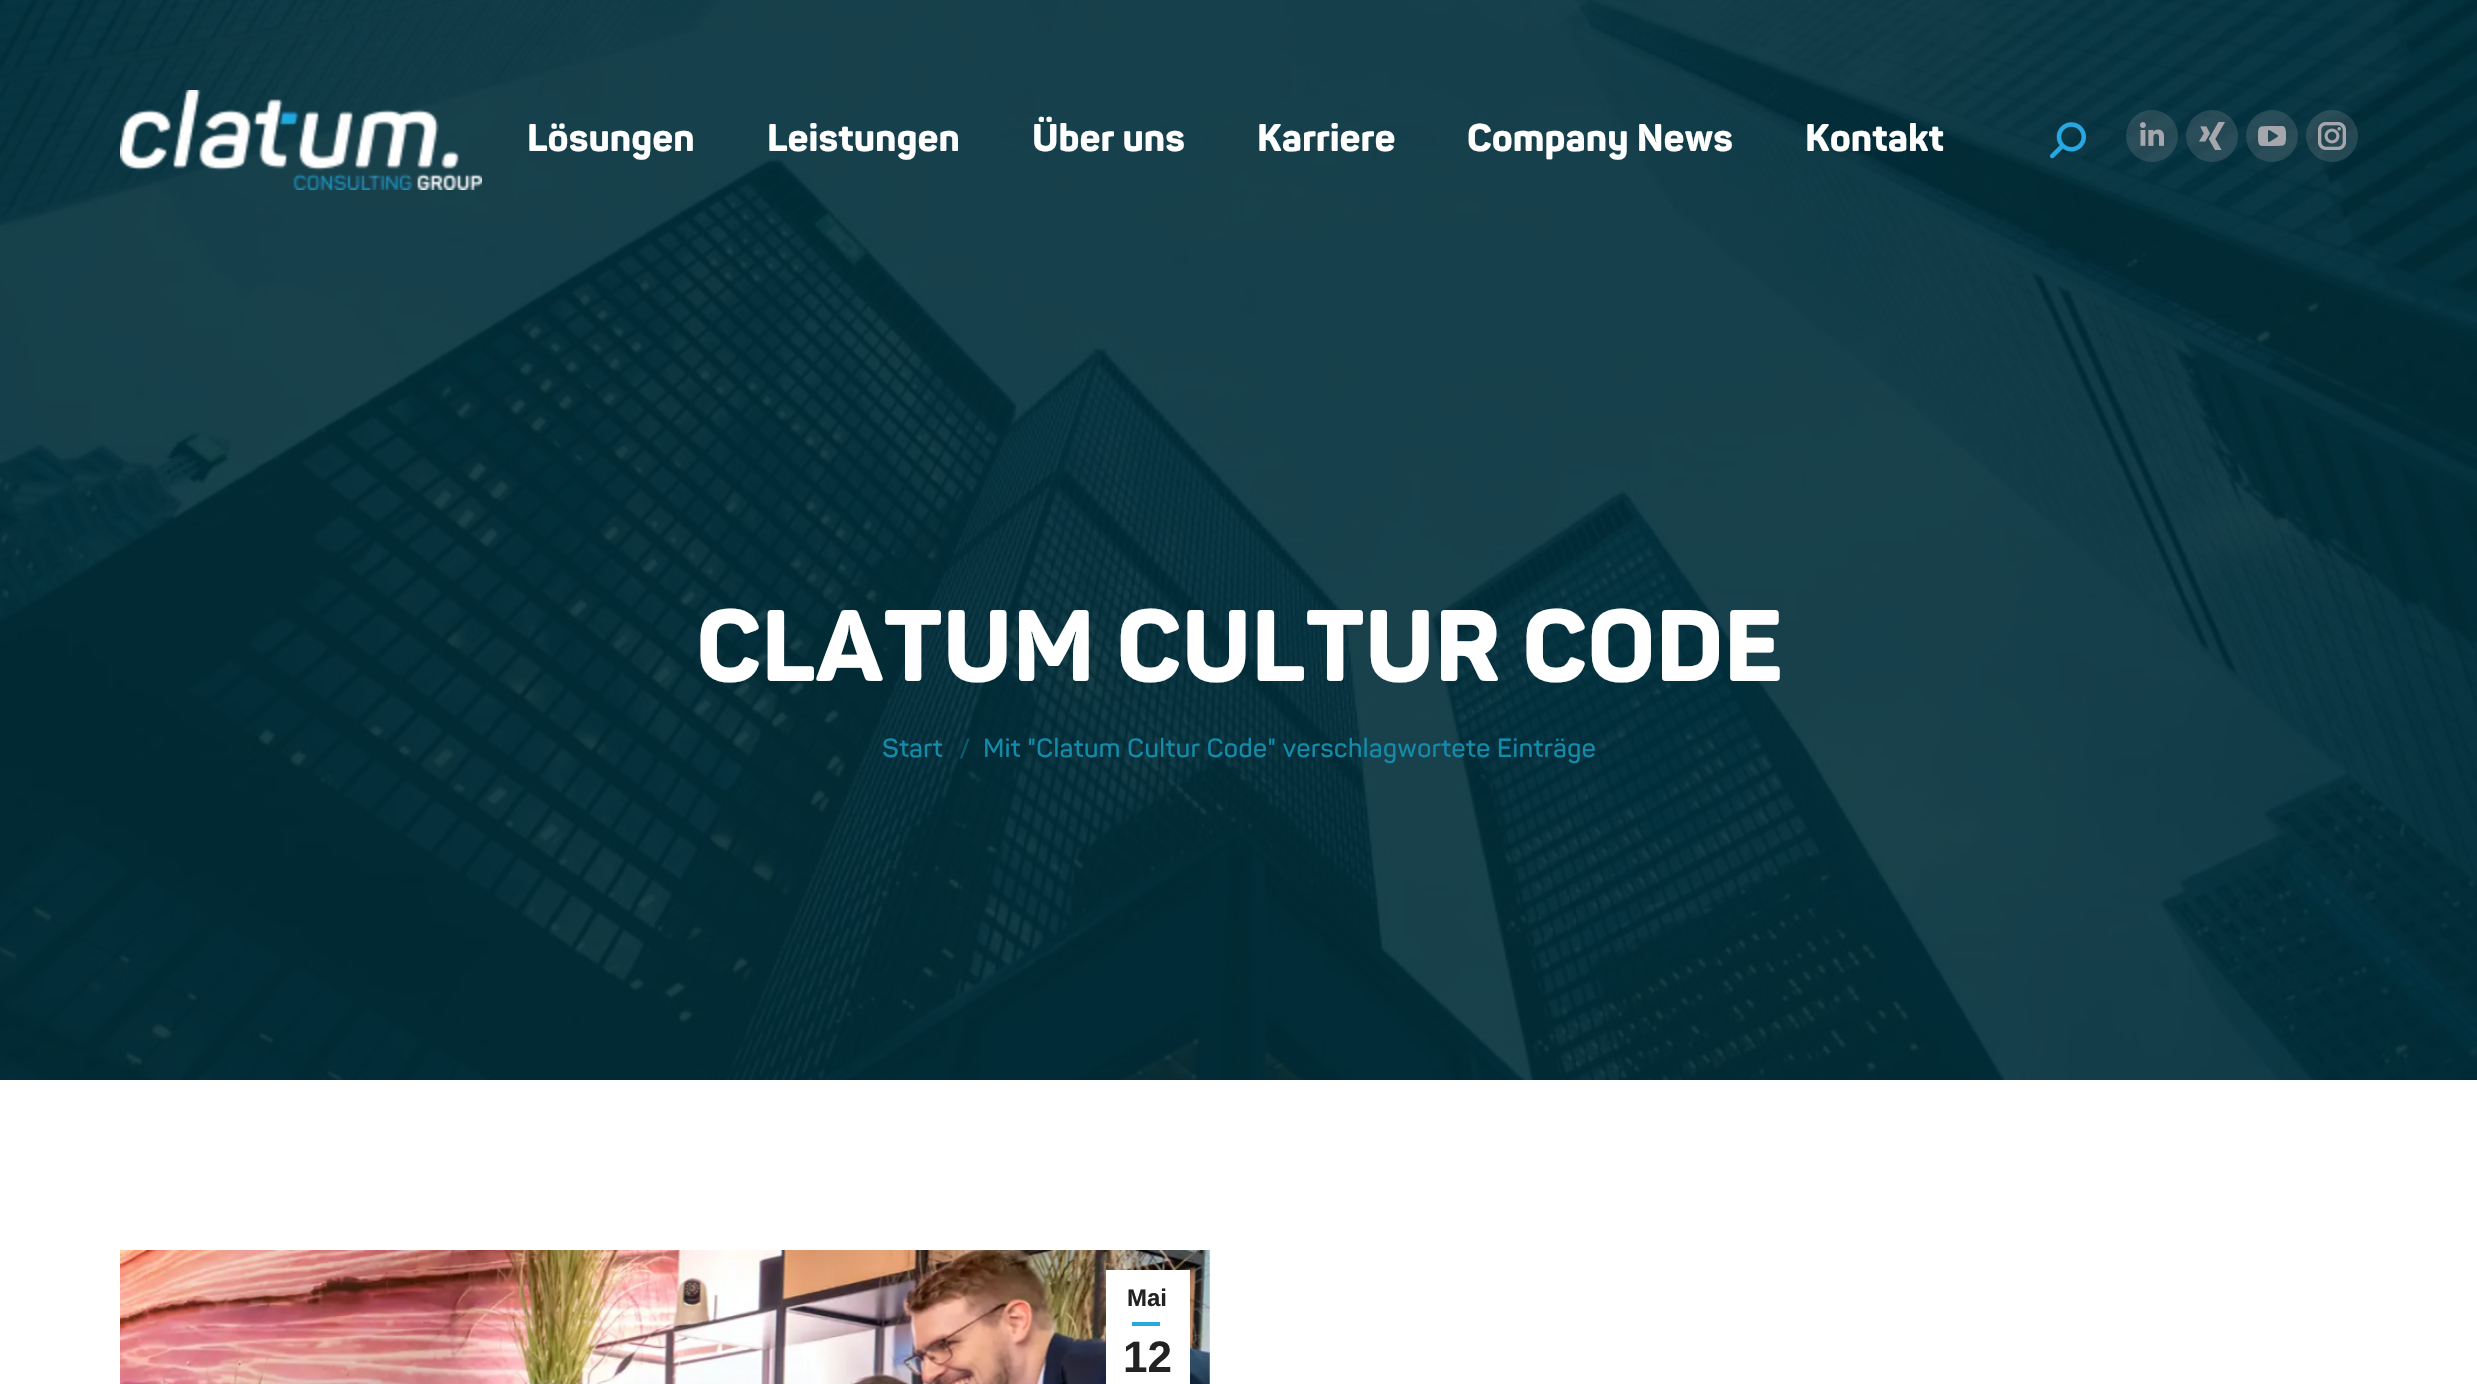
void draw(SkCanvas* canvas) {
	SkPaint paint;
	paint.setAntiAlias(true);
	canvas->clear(0xffffffff);
	canvas->drawImageRect(SkImages::DeferredFromEncodedData(SkData::MakeFromFileName("img7.png")), SkRect::MakeXYWH(0, 0, 2477, 1080), SkSamplingOptions());
	canvas->drawImageRect(SkImages::DeferredFromEncodedData(SkData::MakeFromFileName("img1.png")), SkRect::MakeXYWH(120, 90, 362, 100), SkSamplingOptions());
	SkFont f1(fontMgr->matchFamilyStyle("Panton", SkFontStyle(800, SkFontStyle::kNormal_Width, SkFontStyle::kUpright_Slant)), 38);
	f1.setSubpixel(true);
	paint.setColor(0xffffffff);
	canvas->drawString("Lösungen", 527, 151, f1, paint);
	canvas->drawString("Leistungen", 767, 151, f1, paint);
	canvas->drawString("Über uns", 1032, 151, f1, paint);
	canvas->drawString("Karriere", 1257, 151, f1, paint);
	canvas->drawString("Company News", 1467, 151, f1, paint);
	canvas->drawString("Kontakt", 1805, 151, f1, paint);
	canvas->drawImageRect(SkImages::DeferredFromEncodedData(SkData::MakeFromFileName("img2.png")), SkRect::MakeXYWH(2050, 122, 36, 37), SkSamplingOptions());
	paint.setColor(0x33a3a4aa);
	canvas->drawCircle(2152, 136, 26, paint);
	canvas->drawImageRect(SkImages::DeferredFromEncodedData(SkData::MakeFromFileName("img3.png")), SkRect::MakeXYWH(2140, 122, 24, 24), SkSamplingOptions());
	canvas->drawCircle(2212, 136, 26, paint);
	canvas->drawImageRect(SkImages::DeferredFromEncodedData(SkData::MakeFromFileName("img4.png")), SkRect::MakeXYWH(2199, 122, 26, 28), SkSamplingOptions());
	canvas->drawCircle(2272, 136, 26, paint);
	canvas->drawImageRect(SkImages::DeferredFromEncodedData(SkData::MakeFromFileName("img5.png")), SkRect::MakeXYWH(2258, 126, 28, 20), SkSamplingOptions());
	canvas->drawCircle(2332, 136, 26, paint);
	canvas->drawImageRect(SkImages::DeferredFromEncodedData(SkData::MakeFromFileName("img6.png")), SkRect::MakeXYWH(2318, 122, 28, 28), SkSamplingOptions());
	SkFont f2(fontMgr->matchFamilyStyle("Panton", SkFontStyle(800, SkFontStyle::kNormal_Width, SkFontStyle::kUpright_Slant)), 100);
	f2.setSubpixel(true);
	paint.setColor(0xffffffff);
	canvas->drawString("CLATUM CULTUR CODE", 696, 681, f2, paint);
	SkFont f3(fontMgr->matchFamilyStyle("Panton", SkFontStyle(600, SkFontStyle::kNormal_Width, SkFontStyle::kUpright_Slant)), 26);
	f3.setSubpixel(true);
	paint.setColor(0xff148ba9);
	canvas->drawString("Start", 882, 757, f3, paint);
	paint.setColor(0xff0a5b6f);
	canvas->drawString("/", 959, 757, f3, paint);
	paint.setColor(0xff148ba9);
	canvas->drawString("Mit \"Clatum Cultur Code\" verschlagwortete Einträge", 983, 757, f3, paint);
	canvas->drawImageRect(SkImages::DeferredFromEncodedData(SkData::MakeFromFileName("img8.png")), SkRect::MakeXYWH(120, 1250, 1090, 134), SkSamplingOptions());
	paint.setColor(0xffffffff);
	canvas->drawRect(SkRect::MakeXYWH(1106, 1270, 84, 114), paint);
	SkFont f4(fontMgr->matchFamilyStyle("Liberation Sans", SkFontStyle::Bold()), 24);
	f4.setSubpixel(true);
	paint.setColor(0xff222222);
	canvas->drawString("Mai", 1127, 1306, f4, paint);
	paint.setColor(0xff28a8e1);
	canvas->drawRect(SkRect::MakeXYWH(1132, 1322, 28, 4), paint);
	SkFont f5(fontMgr->matchFamilyStyle("Liberation Sans", SkFontStyle::Bold()), 44);
	f5.setSubpixel(true);
	paint.setColor(0xff222222);
	canvas->drawString("12", 1123, 1372, f5, paint);
}
